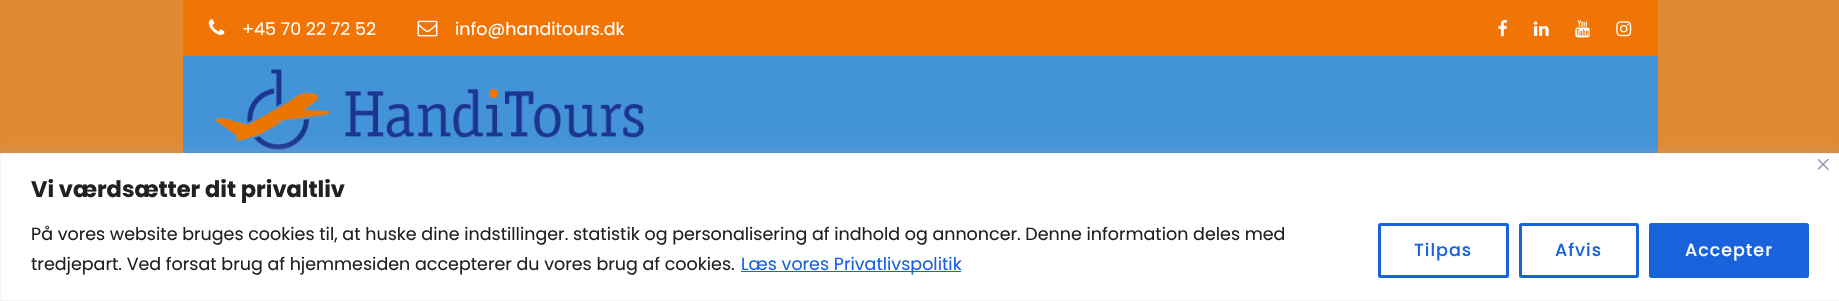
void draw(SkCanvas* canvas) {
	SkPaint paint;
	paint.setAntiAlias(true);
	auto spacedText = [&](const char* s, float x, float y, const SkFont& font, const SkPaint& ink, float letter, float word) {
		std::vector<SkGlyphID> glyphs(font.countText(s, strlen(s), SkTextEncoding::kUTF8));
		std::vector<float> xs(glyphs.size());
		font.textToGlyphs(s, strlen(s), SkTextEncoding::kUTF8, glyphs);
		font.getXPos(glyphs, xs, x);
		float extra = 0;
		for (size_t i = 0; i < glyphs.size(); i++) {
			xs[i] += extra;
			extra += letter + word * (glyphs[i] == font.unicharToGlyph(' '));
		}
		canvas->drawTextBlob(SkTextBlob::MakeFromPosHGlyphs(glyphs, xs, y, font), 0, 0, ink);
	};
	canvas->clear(0xffe08a33);
	paint.setColor(0xfff27405);
	canvas->drawRect(SkRect::MakeXYWH(183, 0, 1475, 56), paint);
	canvas->drawImageRect(SkImages::DeferredFromEncodedData(SkData::MakeFromFileName("img1.png")), SkRect::MakeXYWH(208, 19, 17, 16), SkSamplingOptions());
	SkFont f1(fontMgr->matchFamilyStyle("Poppins", SkFontStyle::Normal()), 17.5);
	f1.setSubpixel(true);
	paint.setColor(0xffffffff);
	canvas->drawString("+45 70 22 72 52", 242, 35, f1, paint);
	canvas->drawImageRect(SkImages::DeferredFromEncodedData(SkData::MakeFromFileName("img2.png")), SkRect::MakeXYWH(417, 20, 21, 17), SkSamplingOptions());
	canvas->drawString("info@handitours.dk", 455, 35, f1, paint);
	canvas->drawImageRect(SkImages::DeferredFromEncodedData(SkData::MakeFromFileName("img3.png")), SkRect::MakeXYWH(1498, 20, 9, 17), SkSamplingOptions());
	canvas->drawImageRect(SkImages::DeferredFromEncodedData(SkData::MakeFromFileName("img4.png")), SkRect::MakeXYWH(1533, 21, 16, 15), SkSamplingOptions());
	canvas->drawImageRect(SkImages::DeferredFromEncodedData(SkData::MakeFromFileName("img5.png")), SkRect::MakeXYWH(1575, 20, 15, 18), SkSamplingOptions());
	canvas->drawImageRect(SkImages::DeferredFromEncodedData(SkData::MakeFromFileName("img6.png")), SkRect::MakeXYWH(1616, 21, 16, 16), SkSamplingOptions());
	paint.setColor(0xff4393d9);
	canvas->drawRect(SkRect::MakeXYWH(183, 56, 1475, 97), paint);
	canvas->drawImageRect(SkImages::DeferredFromEncodedData(SkData::MakeFromFileName("img7.png")), SkRect::MakeXYWH(214, 69, 430, 81), SkSamplingOptions());
	paint.setColor(0x4dacabab);
	paint.setMaskFilter(SkMaskFilter::MakeBlur(kNormal_SkBlurStyle, 6));
	canvas->drawRect(SkRect::MakeXYWH(0, 151, 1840, 149), paint);
	paint.setMaskFilter(nullptr);
	paint.setColor(0xffffffff);
	canvas->drawRect(SkRect::MakeXYWH(0.5, 153.5, 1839, 147), paint);
	paint.setStroke(true);
	paint.setStrokeWidth(1);
	paint.setColor(0xfff4f4f4);
	canvas->drawRect(SkRect::MakeXYWH(0.5, 153.5, 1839, 147), paint);
	canvas->drawImageRect(SkImages::DeferredFromEncodedData(SkData::MakeFromFileName("img8.png")), SkRect::MakeXYWH(1818, 159, 11, 11), SkSamplingOptions());
	SkFont f2(fontMgr->matchFamilyStyle("Poppins", SkFontStyle::Bold()), 22.5);
	f2.setSubpixel(true);
	paint.setStroke(false);
	paint.setColor(0xff212121);
	canvas->drawString("Vi værdsætter dit privaltliv", 31, 197, f2, paint);
	canvas->drawString("På vores website bruges cookies til, at huske dine indstillinger. statistik og personalisering af indhold og annoncer. Denne information deles med", 31, 240, f1, paint);
	canvas->drawString("tredjepart. Ved forsat brug af hjemmesiden accepterer du vores brug af cookies.", 31, 270, f1, paint);
	paint.setColor(0xff1863dc);
	canvas->drawRect(SkRect::MakeXYWH(741, 271, 220, 1), paint);
	canvas->drawString("Læs vores Privatlivspolitik", 741, 270, f1, paint);
	paint.setStroke(true);
	paint.setStrokeWidth(3);
	canvas->drawRoundRect(SkRect::MakeXYWH(1379.5, 224.5, 128, 52), 1, 1, paint);
	SkFont f3(fontMgr->matchFamilyStyle("Poppins", SkFontStyle(500, SkFontStyle::kNormal_Width, SkFontStyle::kUpright_Slant)), 17.5);
	f3.setSubpixel(true);
	paint.setStroke(false);
	spacedText("Tilpas", 1414, 256, f3, paint, 1, 0);
	paint.setStroke(true);
	canvas->drawRoundRect(SkRect::MakeXYWH(1520.5, 224.5, 117, 52), 1, 1, paint);
	paint.setStroke(false);
	spacedText("Afvis", 1555, 256, f3, paint, 1, 0);
	canvas->drawRoundRect(SkRect::MakeXYWH(1650.5, 224.5, 157, 52), 1, 1, paint);
	paint.setStroke(true);
	canvas->drawRoundRect(SkRect::MakeXYWH(1650.5, 224.5, 157, 52), 1, 1, paint);
	paint.setStroke(false);
	paint.setColor(0xffffffff);
	spacedText("Accepter", 1685, 256, f3, paint, 1, 0);
}
